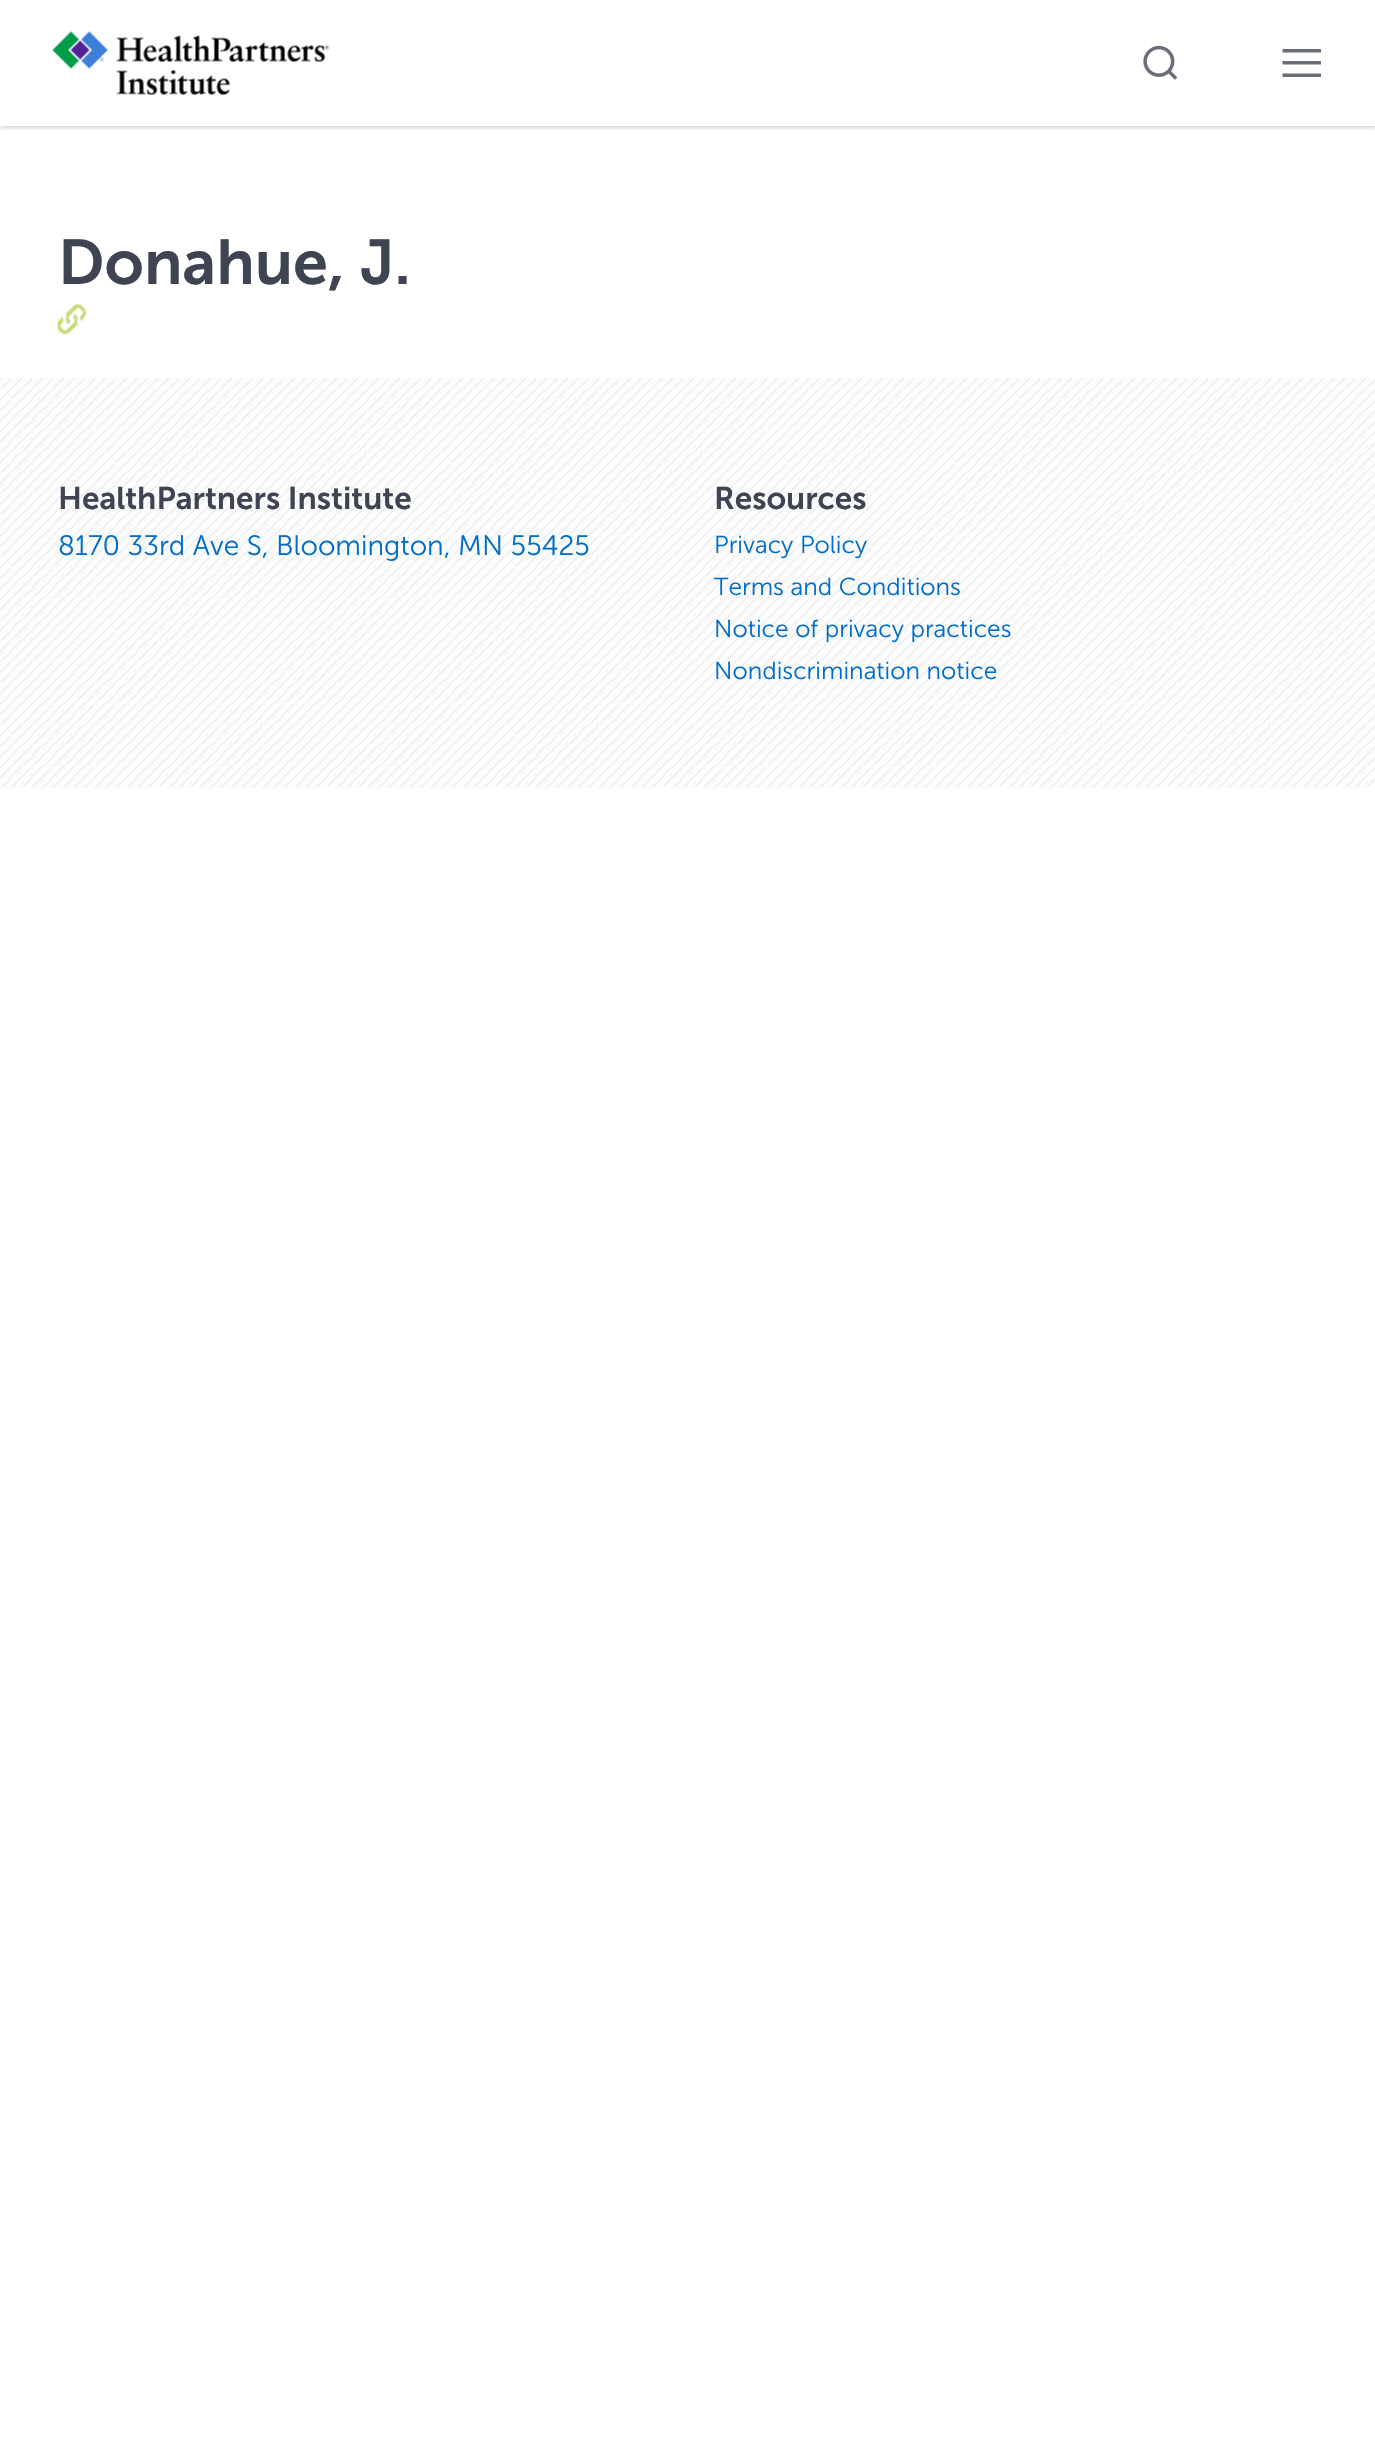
void draw(SkCanvas* canvas) {
	SkPaint paint;
	paint.setAntiAlias(true);
	auto svgPath = [&](const char* data, bool evenOdd = false) {
		SkPath result = *SkParsePath::FromSVGString(data);
		if (evenOdd) result.setFillType(SkPathFillType::kEvenOdd);
		return result;
	};
	canvas->clear(0xffffffff);
	canvas->save();
	canvas->clipRect(SkRect::MakeXYWH(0, 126, 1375, 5));
	paint.setColor(0x80a8a8a8);
	paint.setMaskFilter(SkMaskFilter::MakeBlur(kNormal_SkBlurStyle, 2));
	canvas->drawRect(SkRect::MakeXYWH(0, 2, 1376, 126), paint);
	paint.setMaskFilter(nullptr);
	canvas->restore();
	canvas->drawImageRect(SkImages::DeferredFromEncodedData(SkData::MakeFromFileName("img1.png")), SkRect::MakeXYWH(52, 31, 278, 64), SkSamplingOptions());
	canvas->drawImageRect(SkImages::DeferredFromEncodedData(SkData::MakeFromFileName("img2.png")), SkRect::MakeXYWH(1143, 45, 35, 35), SkSamplingOptions());
	paint.setColor(0xff696e79);
	canvas->drawPath(svgPath("M1282.5 77H1321V73.5H1282.5ZM1282.5 64.5H1321V61H1282.5ZM1282.5 49V52.5H1321V49Z"), paint);
	SkFont f1(fontMgr->matchFamilyStyle("Museo Sans", SkFontStyle(600, SkFontStyle::kNormal_Width, SkFontStyle::kUpright_Slant)), 63);
	f1.setSubpixel(true);
	paint.setColor(0xff3e4451);
	canvas->drawString("Donahue, J.", 58, 284, f1, paint);
	canvas->drawImageRect(SkImages::DeferredFromEncodedData(SkData::MakeFromFileName("img3.png")), SkRect::MakeXYWH(57, 304, 29, 31), SkSamplingOptions());
	canvas->drawImageRect(SkImages::DeferredFromEncodedData(SkData::MakeFromFileName("img4.png")), SkRect::MakeXYWH(0, 378, 1375, 410), SkSamplingOptions());
	SkFont f2(fontMgr->matchFamilyStyle("Museo Sans", SkFontStyle(600, SkFontStyle::kNormal_Width, SkFontStyle::kUpright_Slant)), 31.5);
	f2.setSubpixel(true);
	canvas->drawString("HealthPartners Institute", 58, 509, f2, paint);
	SkFont f3(fontMgr->matchFamilyStyle("Museo Sans", SkFontStyle(300, SkFontStyle::kNormal_Width, SkFontStyle::kUpright_Slant)), 28);
	f3.setSubpixel(true);
	paint.setColor(0xff006dca);
	canvas->drawString("8170 33rd Ave S, Bloomington, MN 55425", 58, 555, f3, paint);
	paint.setColor(0xff3e4451);
	canvas->drawString("Resources", 714, 509, f2, paint);
	SkFont f4(fontMgr->matchFamilyStyle("Museo Sans", SkFontStyle(300, SkFontStyle::kNormal_Width, SkFontStyle::kUpright_Slant)), 24.5);
	f4.setSubpixel(true);
	paint.setColor(0xff006dca);
	canvas->drawString("Privacy Policy", 714, 553, f4, paint);
	canvas->drawString("Terms and Conditions", 714, 595, f4, paint);
	canvas->drawString("Notice of privacy practices", 714, 637, f4, paint);
	canvas->drawString("Nondiscrimination notice", 714, 679, f4, paint);
}
